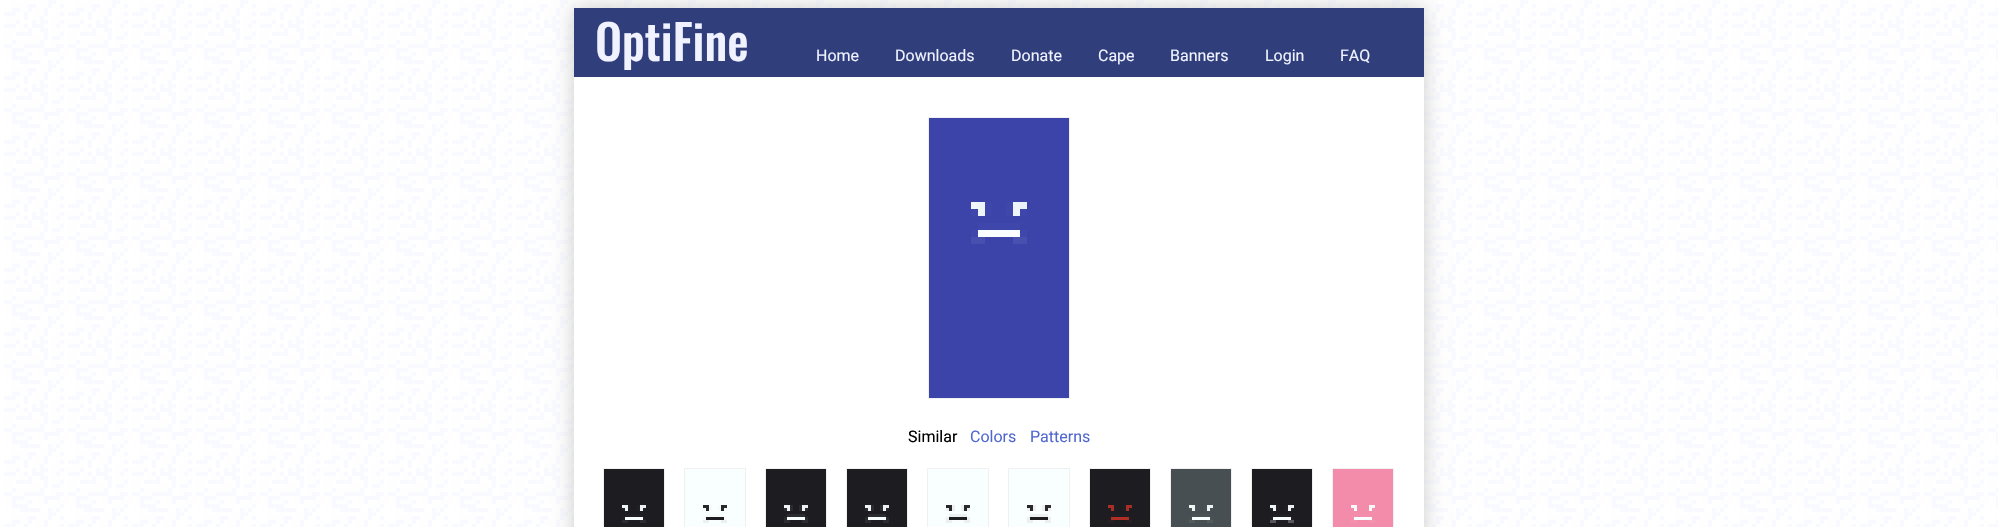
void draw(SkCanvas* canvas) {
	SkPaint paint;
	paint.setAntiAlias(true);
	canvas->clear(0xffffffff);
	canvas->drawImageRect(SkImages::DeferredFromEncodedData(SkData::MakeFromFileName("img1.png")), SkRect::MakeXYWH(4, 0, 1994, 527), SkSamplingOptions());
	paint.setColor(0xffcccccc);
	paint.setMaskFilter(SkMaskFilter::MakeBlur(kNormal_SkBlurStyle, 10));
	canvas->drawRect(SkRect::MakeXYWH(574, 8, 850, 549), paint);
	paint.setMaskFilter(nullptr);
	paint.setColor(0xffffffff);
	canvas->drawRect(SkRect::MakeXYWH(574, 77, 850, 450), paint);
	paint.setColor(0xff313e7c);
	canvas->drawRect(SkRect::MakeXYWH(574, 8, 850, 69), paint);
	SkFont f1(fontMgr->matchFamilyStyle("Oswald", SkFontStyle(500, SkFontStyle::kNormal_Width, SkFontStyle::kUpright_Slant)), 48);
	f1.setSubpixel(true);
	paint.setColor(0xfff0f3ff);
	canvas->drawString("OptiFine", 595, 61, f1, paint);
	SkFont f2(fontMgr->matchFamilyStyle("Roboto", SkFontStyle::Normal()), 16);
	f2.setSubpixel(true);
	canvas->drawString("Home", 816, 61, f2, paint);
	canvas->drawString("Downloads", 895, 61, f2, paint);
	canvas->drawString("Donate", 1011, 61, f2, paint);
	canvas->drawString("Cape", 1098, 61, f2, paint);
	canvas->drawString("Banners", 1170, 61, f2, paint);
	canvas->drawString("Login", 1265, 61, f2, paint);
	canvas->drawString("FAQ", 1340, 61, f2, paint);
	paint.setStroke(true);
	paint.setStrokeWidth(1);
	paint.setColor(0xfff0f0f0);
	canvas->drawRect(SkRect::MakeXYWH(928.5, 117.5, 141, 281), paint);
	canvas->drawImageRect(SkImages::DeferredFromEncodedData(SkData::MakeFromFileName("img2.png")), SkRect::MakeXYWH(929, 118, 140, 280), SkSamplingOptions());
	paint.setStroke(false);
	paint.setColor(0xff000000);
	canvas->drawString("Similar", 908, 442, f2, paint);
	paint.setColor(0xff5168cf);
	canvas->drawString("Colors", 970, 442, f2, paint);
	canvas->drawString("Patterns", 1030, 442, f2, paint);
	paint.setStroke(true);
	paint.setColor(0xfff0f0f0);
	canvas->drawRect(SkRect::MakeXYWH(603.5, 468.5, 61, 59), paint);
	canvas->drawImageRect(SkImages::DeferredFromEncodedData(SkData::MakeFromFileName("img3.png")), SkRect::MakeXYWH(604, 469, 60, 58), SkSamplingOptions());
	canvas->drawRect(SkRect::MakeXYWH(684.5, 468.5, 61, 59), paint);
	canvas->drawImageRect(SkImages::DeferredFromEncodedData(SkData::MakeFromFileName("img4.png")), SkRect::MakeXYWH(685, 469, 60, 58), SkSamplingOptions());
	canvas->drawRect(SkRect::MakeXYWH(765.5, 468.5, 61, 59), paint);
	canvas->drawImageRect(SkImages::DeferredFromEncodedData(SkData::MakeFromFileName("img5.png")), SkRect::MakeXYWH(766, 469, 60, 58), SkSamplingOptions());
	canvas->drawRect(SkRect::MakeXYWH(846.5, 468.5, 61, 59), paint);
	canvas->drawImageRect(SkImages::DeferredFromEncodedData(SkData::MakeFromFileName("img6.png")), SkRect::MakeXYWH(847, 469, 60, 58), SkSamplingOptions());
	canvas->drawRect(SkRect::MakeXYWH(927.5, 468.5, 61, 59), paint);
	canvas->drawImageRect(SkImages::DeferredFromEncodedData(SkData::MakeFromFileName("img7.png")), SkRect::MakeXYWH(928, 469, 60, 58), SkSamplingOptions());
	canvas->drawRect(SkRect::MakeXYWH(1008.5, 468.5, 61, 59), paint);
	canvas->drawImageRect(SkImages::DeferredFromEncodedData(SkData::MakeFromFileName("img7.png")), SkRect::MakeXYWH(1009, 469, 60, 58), SkSamplingOptions());
	canvas->drawRect(SkRect::MakeXYWH(1089.5, 468.5, 61, 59), paint);
	canvas->drawImageRect(SkImages::DeferredFromEncodedData(SkData::MakeFromFileName("img8.png")), SkRect::MakeXYWH(1090, 469, 60, 58), SkSamplingOptions());
	canvas->drawRect(SkRect::MakeXYWH(1170.5, 468.5, 61, 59), paint);
	canvas->drawImageRect(SkImages::DeferredFromEncodedData(SkData::MakeFromFileName("img9.png")), SkRect::MakeXYWH(1171, 469, 60, 58), SkSamplingOptions());
	canvas->drawRect(SkRect::MakeXYWH(1251.5, 468.5, 61, 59), paint);
	canvas->drawImageRect(SkImages::DeferredFromEncodedData(SkData::MakeFromFileName("img10.png")), SkRect::MakeXYWH(1252, 469, 60, 58), SkSamplingOptions());
	canvas->drawRect(SkRect::MakeXYWH(1332.5, 468.5, 61, 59), paint);
	canvas->drawImageRect(SkImages::DeferredFromEncodedData(SkData::MakeFromFileName("img11.png")), SkRect::MakeXYWH(1333, 469, 60, 58), SkSamplingOptions());
}
